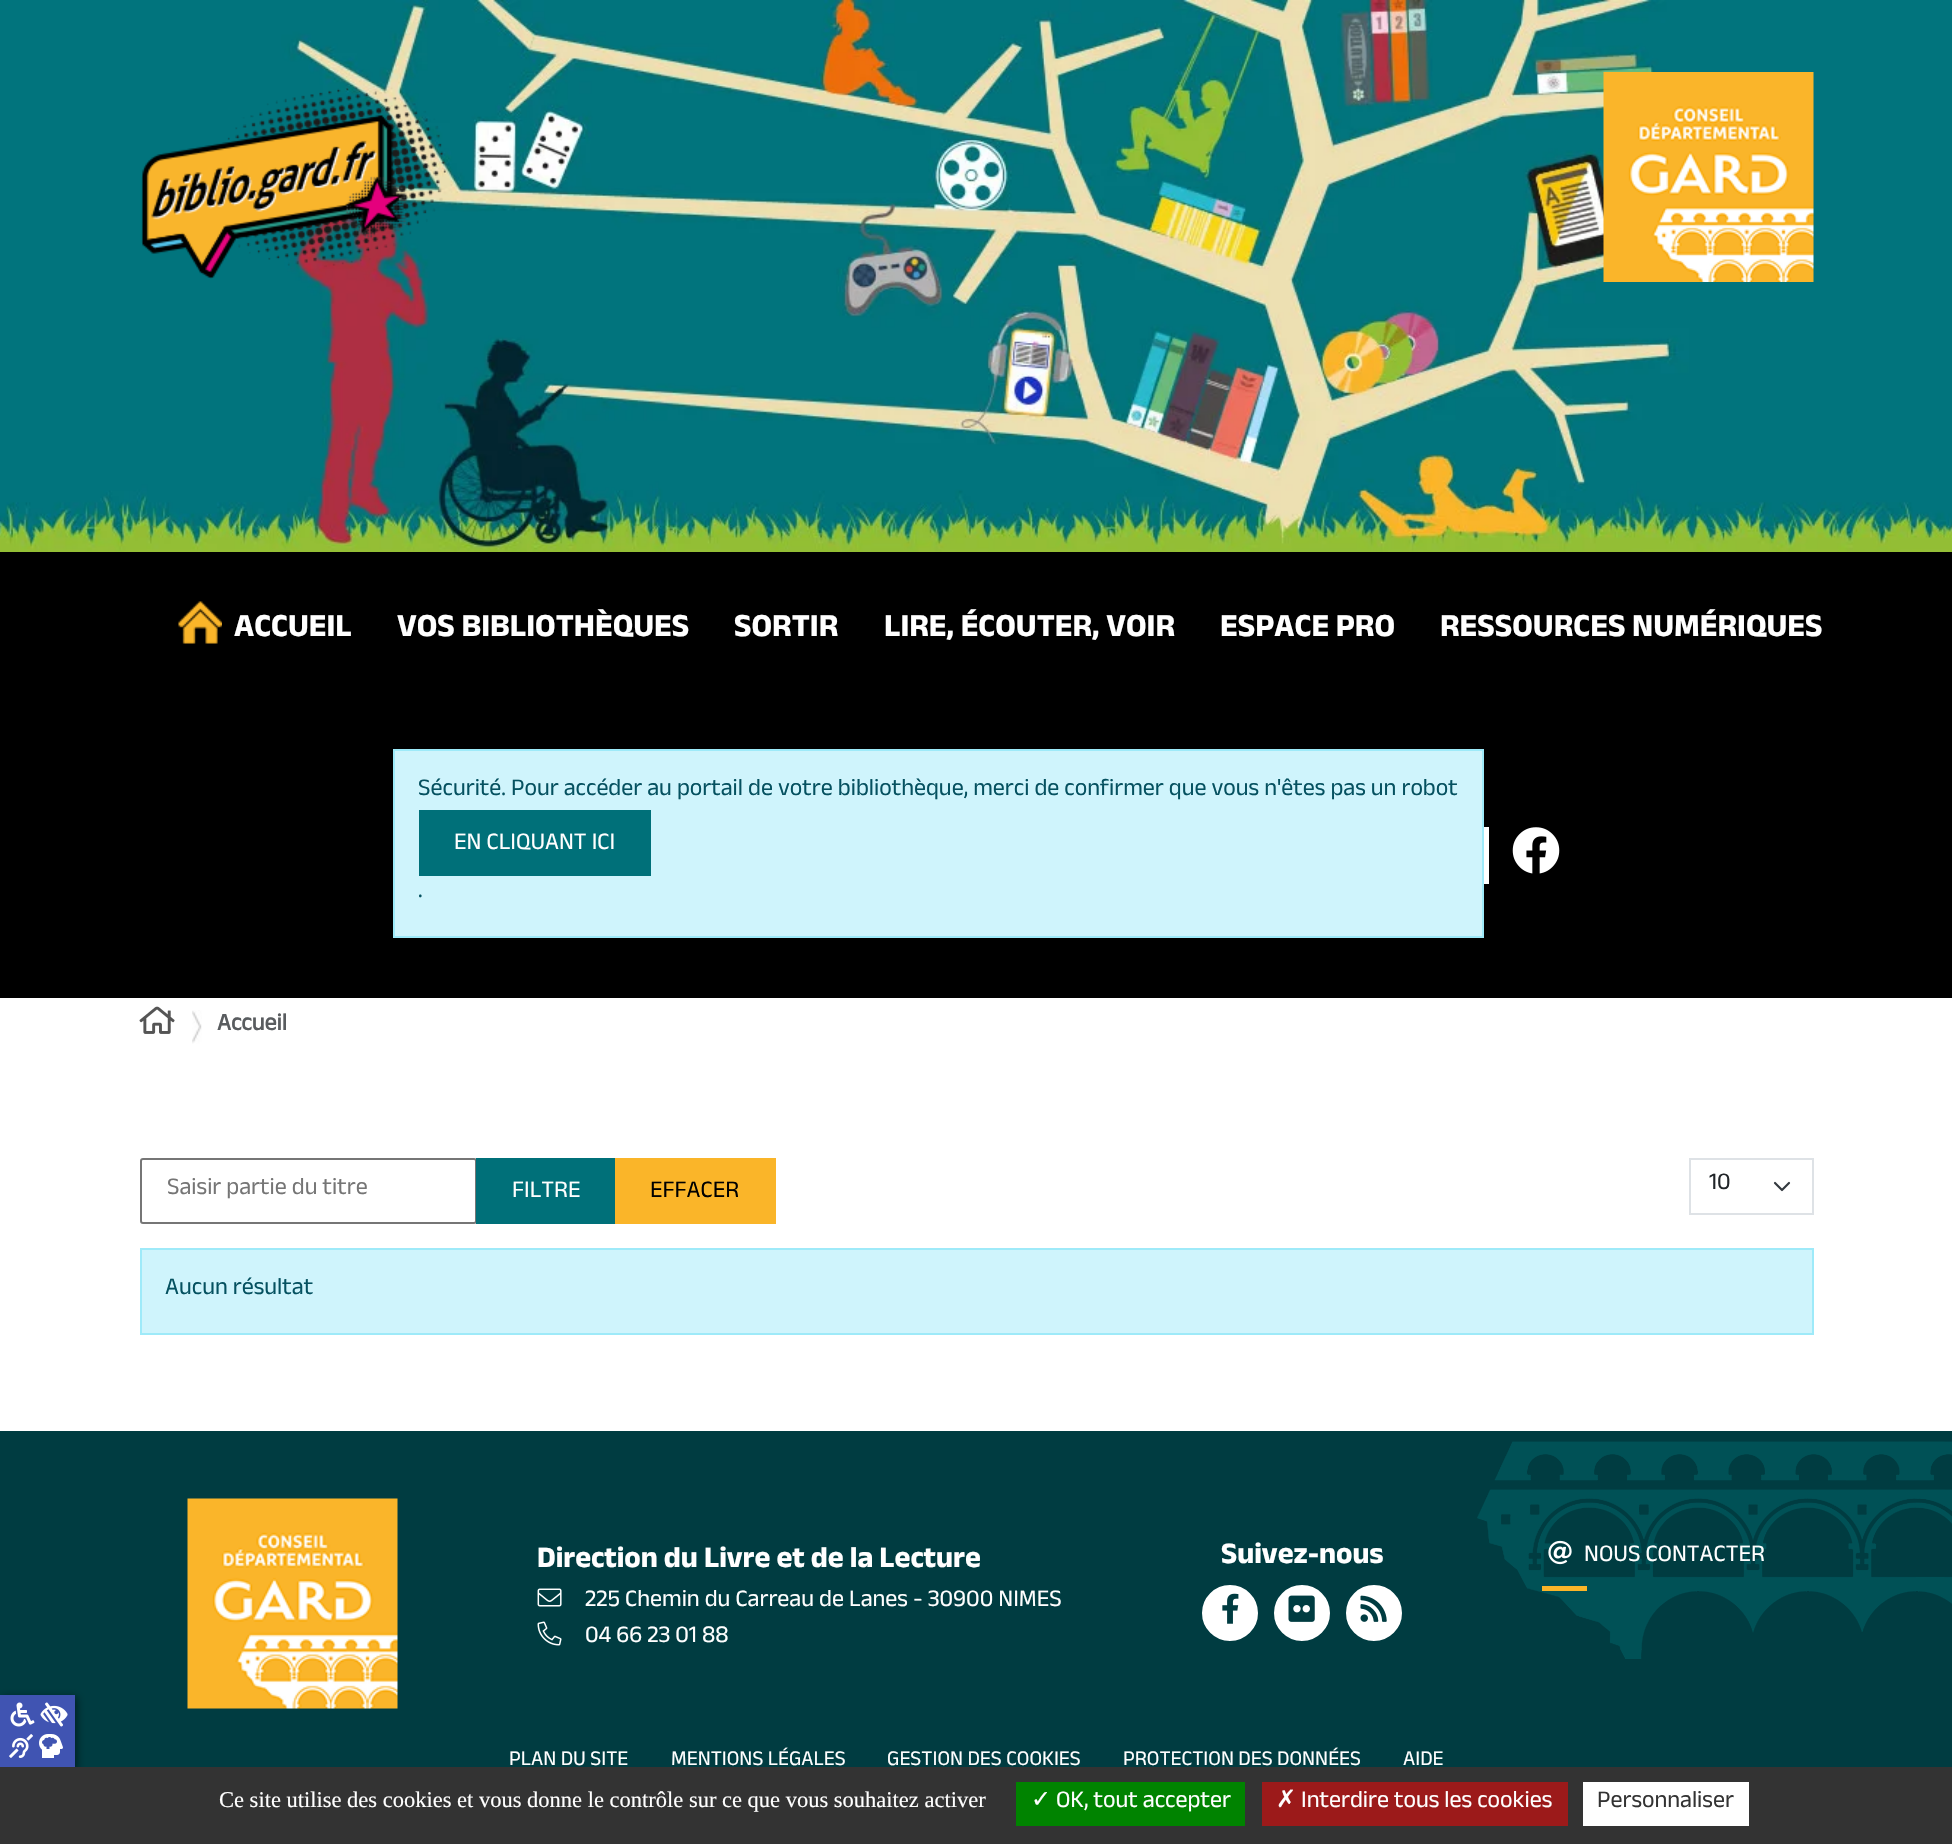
void draw(SkCanvas* canvas) {
	SkPaint paint;
	paint.setAntiAlias(true);
	auto svgPath = [&](const char* data, bool evenOdd = false) {
		SkPath result = *SkParsePath::FromSVGString(data);
		if (evenOdd) result.setFillType(SkPathFillType::kEvenOdd);
		return result;
	};
	canvas->clear(0xffffffff);
	canvas->drawImageRect(SkImages::DeferredFromEncodedData(SkData::MakeFromFileName("img1.png")), SkRect::MakeXYWH(0, 0, 1952, 552), SkSamplingOptions());
	canvas->drawImageRect(SkImages::DeferredFromEncodedData(SkData::MakeFromFileName("img2.png")), SkRect::MakeXYWH(141, 86, 305, 193), SkSamplingOptions());
	canvas->drawImageRect(SkImages::DeferredFromEncodedData(SkData::MakeFromFileName("img3.png")), SkRect::MakeXYWH(1603, 72, 211, 210), SkSamplingOptions());
	paint.setColor(0xff000000);
	canvas->drawRect(SkRect::MakeXYWH(0, 552, 1952, 446), paint);
	canvas->drawImageRect(SkImages::DeferredFromEncodedData(SkData::MakeFromFileName("img4.png")), SkRect::MakeXYWH(178, 601, 44, 43), SkSamplingOptions());
	SkFont f1(fontMgr->matchFamilyStyle("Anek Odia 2", SkFontStyle::Bold()), 32.4);
	f1.setSubpixel(true);
	paint.setColor(0xffffffff);
	canvas->drawString("ACCUEIL", 234, 636, f1, paint);
	canvas->drawString("VOS BIBLIOTHÈQUES", 397, 636, f1, paint);
	canvas->drawString("SORTIR", 734, 636, f1, paint);
	canvas->drawString("LIRE, ÉCOUTER, VOIR", 884, 636, f1, paint);
	canvas->drawString("ESPACE PRO", 1220, 636, f1, paint);
	canvas->drawString("RESSOURCES NUMÉRIQUES", 1440, 636, f1, paint);
	paint.setColor(0xffcff4fc);
	canvas->drawRect(SkRect::MakeXYWH(394, 750, 1089, 187), paint);
	paint.setStroke(true);
	paint.setStrokeWidth(2);
	paint.setColor(0xff9eeaf9);
	canvas->drawRect(SkRect::MakeXYWH(394, 750, 1089, 187), paint);
	SkFont f2(fontMgr->matchFamilyStyle("Anek Odia", SkFontStyle::Normal()), 24);
	f2.setSubpixel(true);
	paint.setStroke(false);
	paint.setColor(0xff055160);
	canvas->drawString("Sécurité. Pour accéder au portail de votre bibliothèque, merci de confirmer que vous n'êtes pas un robot", 418, 795, f2, paint);
	paint.setColor(0xff007079);
	canvas->drawRect(SkRect::MakeXYWH(419, 810, 232, 66), paint);
	paint.setColor(0xffffffff);
	canvas->drawString("EN CLIQUANT ICI", 454, 849, f2, paint);
	paint.setColor(0xff055160);
	canvas->drawString(".", 418, 897, f2, paint);
	paint.setColor(0xffffffff);
	canvas->drawRect(SkRect::MakeXYWH(1484, 827, 5, 57), paint);
	canvas->drawImageRect(SkImages::DeferredFromEncodedData(SkData::MakeFromFileName("img5.png")), SkRect::MakeXYWH(1512, 827, 48, 47), SkSamplingOptions());
	canvas->drawImageRect(SkImages::DeferredFromEncodedData(SkData::MakeFromFileName("img6.png")), SkRect::MakeXYWH(139, 1006, 36, 28), SkSamplingOptions());
	canvas->drawImageRect(SkImages::DeferredFromEncodedData(SkData::MakeFromFileName("img7.png")), SkRect::MakeXYWH(192, 1010, 10, 34), SkSamplingOptions());
	SkFont f3(fontMgr->matchFamilyStyle("Anek Odia", SkFontStyle::Bold()), 24);
	f3.setSubpixel(true);
	paint.setColor(0xff595c5f);
	canvas->drawString("Accueil", 217, 1030, f3, paint);
	paint.setStroke(true);
	paint.setColor(0xff767676);
	canvas->drawRoundRect(SkRect::MakeXYWH(141, 1159, 335, 64), 2, 2, paint);
	paint.setStroke(false);
	paint.setColor(0xff757575);
	canvas->drawString("Saisir partie du titre", 167, 1194, f2, paint);
	paint.setColor(0xff007079);
	canvas->drawRect(SkRect::MakeXYWH(476, 1158, 139, 66), paint);
	paint.setColor(0xffffffff);
	canvas->drawString("FILTRE", 512, 1197, f2, paint);
	paint.setColor(0xfffab529);
	canvas->drawRect(SkRect::MakeXYWH(615, 1158, 161, 66), paint);
	paint.setColor(0xff000000);
	canvas->drawString("EFFACER", 650, 1197, f2, paint);
	paint.setStroke(true);
	paint.setStrokeWidth(2.2);
	paint.setStrokeCap(SkPaint::kRound_Cap);
	paint.setStrokeJoin(SkPaint::kRound_Join);
	paint.setColor(0xff343a40);
	canvas->drawPath(svgPath("M1775 1183L1782 1190L1789 1183"), paint);
	paint.setStrokeWidth(2);
	paint.setStrokeCap(SkPaint::kButt_Cap);
	paint.setStrokeJoin(SkPaint::kMiter_Join);
	paint.setColor(0xffdee2e6);
	canvas->drawRect(SkRect::MakeXYWH(1690, 1159, 123, 55), paint);
	paint.setStroke(false);
	paint.setColor(0xff212529);
	canvas->drawString("10", 1709, 1189, f2, paint);
	paint.setColor(0xffcff4fc);
	canvas->drawRect(SkRect::MakeXYWH(141, 1249, 1672, 85), paint);
	paint.setStroke(true);
	paint.setColor(0xff9eeaf9);
	canvas->drawRect(SkRect::MakeXYWH(141, 1249, 1672, 85), paint);
	paint.setStroke(false);
	paint.setColor(0xff055160);
	canvas->drawString("Aucun résultat", 165, 1294, f2, paint);
	paint.setColor(0xff003c41);
	canvas->drawRect(SkRect::MakeXYWH(0, 1431, 1952, 336), paint);
	paint.setColor(0x80000000);
	paint.setMaskFilter(SkMaskFilter::MakeBlur(kNormal_SkBlurStyle, 4));
	canvas->drawRect(SkRect::MakeXYWH(2, 1697, 75, 75), paint);
	paint.setMaskFilter(nullptr);
	paint.setColor(0xff4054b2);
	canvas->drawRect(SkRect::MakeXYWH(0, 1695, 75, 72), paint);
	canvas->drawImageRect(SkImages::DeferredFromEncodedData(SkData::MakeFromFileName("img8.png")), SkRect::MakeXYWH(10, 1702, 25, 25), SkSamplingOptions());
	canvas->drawImageRect(SkImages::DeferredFromEncodedData(SkData::MakeFromFileName("img9.png")), SkRect::MakeXYWH(40, 1702, 28, 25), SkSamplingOptions());
	canvas->drawImageRect(SkImages::DeferredFromEncodedData(SkData::MakeFromFileName("img10.png")), SkRect::MakeXYWH(9, 1734, 24, 24), SkSamplingOptions());
	canvas->drawImageRect(SkImages::DeferredFromEncodedData(SkData::MakeFromFileName("img11.png")), SkRect::MakeXYWH(39, 1734, 24, 24), SkSamplingOptions());
	canvas->drawImageRect(SkImages::DeferredFromEncodedData(SkData::MakeFromFileName("img12.png")), SkRect::MakeXYWH(1477, 1441, 475, 218), SkSamplingOptions());
	canvas->drawImageRect(SkImages::DeferredFromEncodedData(SkData::MakeFromFileName("img13.png")), SkRect::MakeXYWH(187, 1498, 211, 211), SkSamplingOptions());
	SkFont f4(fontMgr->matchFamilyStyle("Anek Odia 2", SkFontStyle::Bold()), 30);
	f4.setSubpixel(true);
	paint.setColor(0xffffffff);
	canvas->drawString("Direction du Livre et de la Lecture", 537, 1567, f4, paint);
	canvas->drawImageRect(SkImages::DeferredFromEncodedData(SkData::MakeFromFileName("img14.png")), SkRect::MakeXYWH(537, 1588, 25, 19), SkSamplingOptions());
	canvas->drawString("225 Chemin du Carreau de Lanes - 30900 NIMES", 585, 1606, f2, paint);
	canvas->drawImageRect(SkImages::DeferredFromEncodedData(SkData::MakeFromFileName("img15.png")), SkRect::MakeXYWH(537, 1621, 25, 25), SkSamplingOptions());
	canvas->drawString("04 66 23 01 88", 585, 1642, f2, paint);
	canvas->drawString("Suivez-nous", 1221, 1563, f4, paint);
	canvas->drawCircle(1230, 1613, 29, paint);
	paint.setStroke(true);
	paint.setColor(0xff003c41);
	canvas->drawCircle(1230, 1613, 29, paint);
	canvas->drawImageRect(SkImages::DeferredFromEncodedData(SkData::MakeFromFileName("img16.png")), SkRect::MakeXYWH(1222, 1593, 17, 31), SkSamplingOptions());
	paint.setStroke(false);
	paint.setColor(0xffffffff);
	canvas->drawCircle(1302, 1613, 29, paint);
	paint.setStroke(true);
	paint.setColor(0xff003c41);
	canvas->drawCircle(1302, 1613, 29, paint);
	canvas->drawImageRect(SkImages::DeferredFromEncodedData(SkData::MakeFromFileName("img17.png")), SkRect::MakeXYWH(1288, 1595, 27, 27), SkSamplingOptions());
	paint.setStroke(false);
	paint.setColor(0xffffffff);
	canvas->drawCircle(1374, 1613, 29, paint);
	paint.setStroke(true);
	paint.setColor(0xff003c41);
	canvas->drawCircle(1374, 1613, 29, paint);
	canvas->drawImageRect(SkImages::DeferredFromEncodedData(SkData::MakeFromFileName("img18.png")), SkRect::MakeXYWH(1360, 1595, 27, 27), SkSamplingOptions());
	canvas->drawImageRect(SkImages::DeferredFromEncodedData(SkData::MakeFromFileName("img19.png")), SkRect::MakeXYWH(1548, 1540, 24, 25), SkSamplingOptions());
	paint.setStroke(false);
	paint.setColor(0xffffffff);
	canvas->drawString("NOUS CONTACTER", 1584, 1561, f2, paint);
	paint.setColor(0xfffab529);
	canvas->drawRect(SkRect::MakeXYWH(1542, 1586, 45, 5), paint);
	SkFont f5(fontMgr->matchFamilyStyle("Anek Odia", SkFontStyle::Normal()), 21);
	f5.setSubpixel(true);
	paint.setColor(0xffffffff);
	canvas->drawString("PLAN DU SITE", 509, 1765, f5, paint);
	canvas->drawString("MENTIONS LÉGALES", 671, 1765, f5, paint);
	canvas->drawString("GESTION DES COOKIES", 887, 1765, f5, paint);
	canvas->drawString("PROTECTION DES DONNÉES", 1123, 1765, f5, paint);
	canvas->drawString("AIDE", 1403, 1765, f5, paint);
	paint.setColor(0xff333333);
	canvas->drawRect(SkRect::MakeXYWH(0, 1767, 1952, 77), paint);
	SkFont f6(fontMgr->matchFamilyStyle("Liberation Serif", SkFontStyle::Normal()), 22.5);
	f6.setSubpixel(true);
	paint.setColor(0xffffffff);
	canvas->drawString("Ce site utilise des cookies et vous donne le contrôle sur ce que vous souhaitez activer", 219, 1807, f6, paint);
	paint.setColor(0xff008300);
	canvas->drawRect(SkRect::MakeXYWH(1016, 1782, 229, 44), paint);
	SkFont f7(fontMgr->matchFamilyStyle("DejaVu Sans", SkFontStyle::Normal()), 24);
	f7.setSubpixel(true);
	paint.setColor(0xffffffff);
	canvas->drawString("✓", 1031, 1807, f7, paint);
	canvas->drawString("OK, tout accepter", 1056, 1807, f2, paint);
	paint.setColor(0xff9c1a1a);
	canvas->drawRect(SkRect::MakeXYWH(1262, 1782, 306, 44), paint);
	paint.setColor(0xffffffff);
	canvas->drawString("✗", 1276, 1807, f7, paint);
	canvas->drawString("Interdire tous les cookies", 1301, 1807, f2, paint);
	canvas->drawRect(SkRect::MakeXYWH(1583, 1782, 166, 44), paint);
	paint.setColor(0xff333333);
	canvas->drawString("Personnaliser", 1597, 1807, f2, paint);
}
